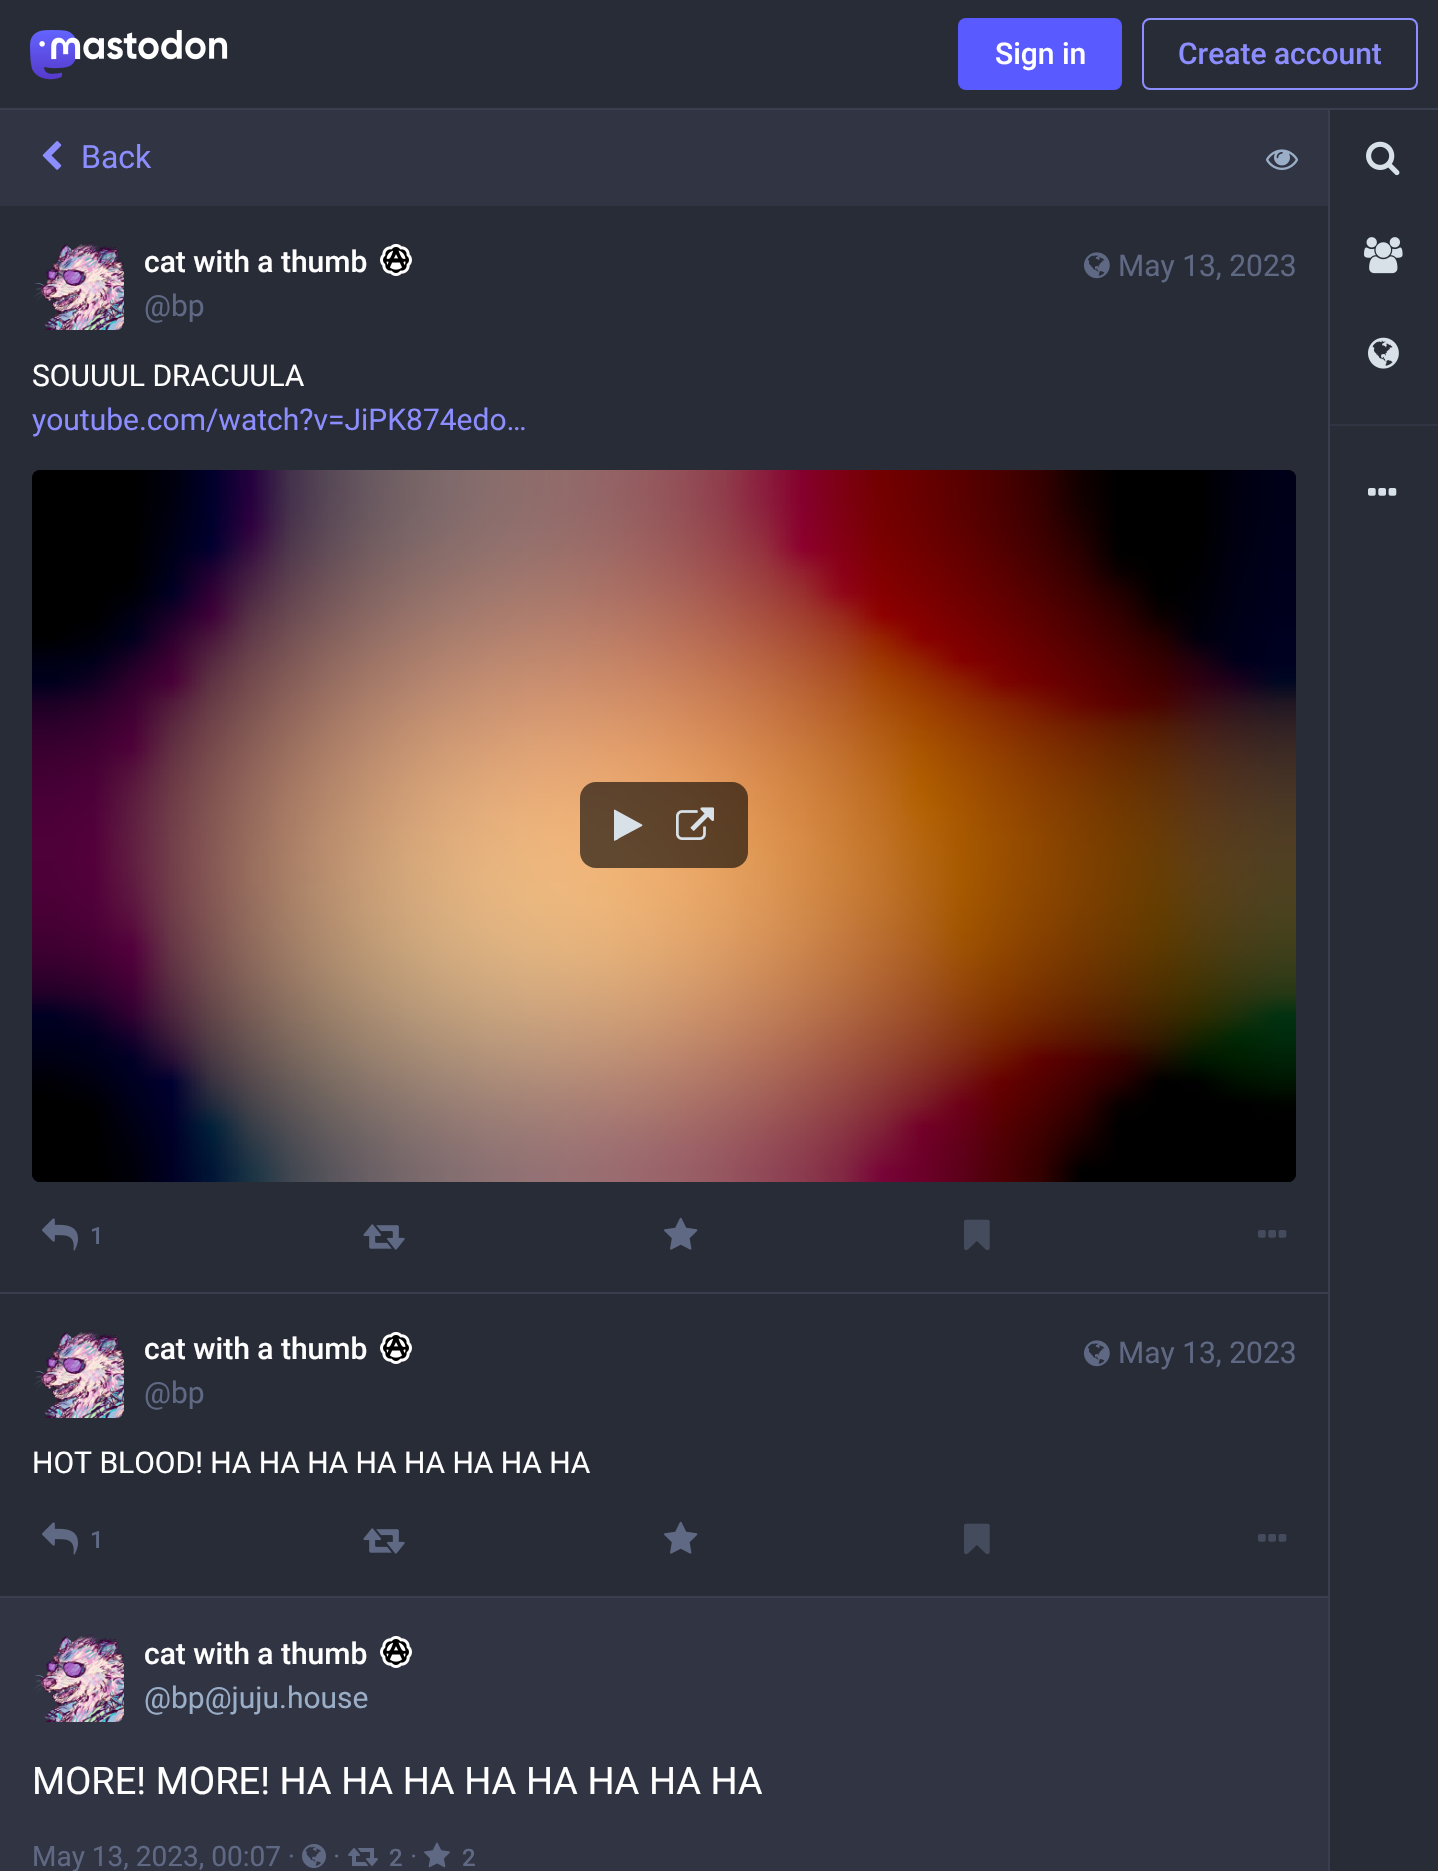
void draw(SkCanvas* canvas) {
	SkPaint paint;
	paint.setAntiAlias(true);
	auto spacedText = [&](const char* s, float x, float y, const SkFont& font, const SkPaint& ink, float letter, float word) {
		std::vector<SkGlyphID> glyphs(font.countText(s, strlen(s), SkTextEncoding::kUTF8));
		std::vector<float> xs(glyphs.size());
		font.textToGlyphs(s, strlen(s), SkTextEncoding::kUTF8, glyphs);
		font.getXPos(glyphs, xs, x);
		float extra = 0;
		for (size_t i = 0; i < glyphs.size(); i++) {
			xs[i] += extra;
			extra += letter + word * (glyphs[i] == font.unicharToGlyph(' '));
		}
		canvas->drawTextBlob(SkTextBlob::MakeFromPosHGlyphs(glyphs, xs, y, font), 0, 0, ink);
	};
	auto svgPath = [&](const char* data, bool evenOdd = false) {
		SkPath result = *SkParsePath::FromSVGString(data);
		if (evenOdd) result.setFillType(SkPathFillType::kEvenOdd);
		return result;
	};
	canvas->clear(0xff282c37);
	paint.setColor(0xff393f4f);
	canvas->drawRect(SkRect::MakeXYWH(0, 108, 1438, 2), paint);
	canvas->drawImageRect(SkImages::DeferredFromEncodedData(SkData::MakeFromFileName("img1.png")), SkRect::MakeXYWH(30, 30, 198, 50), SkSamplingOptions());
	paint.setColor(0xff595aff);
	canvas->drawRoundRect(SkRect::MakeXYWH(958, 18, 164, 72), 8, 8, paint);
	SkFont f1(fontMgr->matchFamilyStyle("Roboto", SkFontStyle(500, SkFontStyle::kNormal_Width, SkFontStyle::kUpright_Slant)), 30);
	f1.setSubpixel(true);
	paint.setColor(0xffffffff);
	canvas->drawString("Sign in", 995, 64, f1, paint);
	paint.setStroke(true);
	paint.setStrokeWidth(2);
	paint.setColor(0xff8c8dff);
	canvas->drawRoundRect(SkRect::MakeXYWH(1143, 19, 274, 70), 7, 7, paint);
	paint.setStroke(false);
	canvas->drawString("Create account", 1178, 64, f1, paint);
	paint.setColor(0xff313543);
	canvas->drawRect(SkRect::MakeXYWH(0, 110, 1328, 96), paint);
	canvas->drawImageRect(SkImages::DeferredFromEncodedData(SkData::MakeFromFileName("img2.png")), SkRect::MakeXYWH(42, 141, 20, 29), SkSamplingOptions());
	SkFont f2(fontMgr->matchFamilyStyle("Roboto", SkFontStyle::Normal()), 32);
	f2.setSubpixel(true);
	paint.setColor(0xff8c8dff);
	canvas->drawString("Back", 81, 168, f2, paint);
	canvas->drawImageRect(SkImages::DeferredFromEncodedData(SkData::MakeFromFileName("img3.png")), SkRect::MakeXYWH(1266, 149, 32, 21), SkSamplingOptions());
	paint.setColor(0xff393f4f);
	canvas->drawRect(SkRect::MakeXYWH(0, 1292, 1328, 2), paint);
	canvas->drawImageRect(SkImages::DeferredFromEncodedData(SkData::MakeFromFileName("img4.png")), SkRect::MakeXYWH(33, 242, 91, 88), SkSamplingOptions());
	paint.setColor(0xffffffff);
	canvas->drawString("cat with a thumb", 144, 272, f1, paint);
	canvas->drawImageRect(SkImages::DeferredFromEncodedData(SkData::MakeFromFileName("img5.png")), SkRect::MakeXYWH(380, 244, 32, 32), SkSamplingOptions());
	SkFont f3(fontMgr->matchFamilyStyle("Roboto", SkFontStyle::Normal()), 30);
	f3.setSubpixel(true);
	paint.setColor(0xff606984);
	canvas->drawString("@bp", 144, 316, f3, paint);
	canvas->drawImageRect(SkImages::DeferredFromEncodedData(SkData::MakeFromFileName("img6.png")), SkRect::MakeXYWH(1084, 252, 26, 27), SkSamplingOptions());
	canvas->drawString("May 13, 2023", 1118, 276, f3, paint);
	paint.setColor(0xffffffff);
	canvas->drawString("SOUUUL DRACUULA", 32, 386, f3, paint);
	paint.setColor(0xff8c8dff);
	canvas->drawString("youtube.com/watch?v=JiPK874edo…", 32, 430, f3, paint);
	paint.setColor(0xff000000);
	canvas->drawRoundRect(SkRect::MakeXYWH(32, 470, 1264, 712), 8, 8, paint);
	canvas->drawImageRect(SkImages::DeferredFromEncodedData(SkData::MakeFromFileName("img7.png")), SkRect::MakeXYWH(32, 470, 1264, 712), SkSamplingOptions());
	paint.setColor(0x99000000);
	canvas->drawRoundRect(SkRect::MakeXYWH(580, 782, 168, 86), 16, 16, paint);
	paint.setColor(0xffd9e1e8);
	canvas->drawPath(svgPath("M642 826L619.5 838C619 838.5 615 841.5 614 840.5V810L614.5 809.5L642 824.5L642.5 825Z"), paint);
	canvas->drawImageRect(SkImages::DeferredFromEncodedData(SkData::MakeFromFileName("img8.png")), SkRect::MakeXYWH(676, 807, 38, 33), SkSamplingOptions());
	canvas->drawImageRect(SkImages::DeferredFromEncodedData(SkData::MakeFromFileName("img9.png")), SkRect::MakeXYWH(42, 1218, 36, 33), SkSamplingOptions());
	SkFont f4(fontMgr->matchFamilyStyle("Roboto", SkFontStyle(500, SkFontStyle::kNormal_Width, SkFontStyle::kUpright_Slant)), 24);
	f4.setSubpixel(true);
	paint.setColor(0xff606984);
	canvas->drawString("1", 90, 1244, f4, paint);
	canvas->drawImageRect(SkImages::DeferredFromEncodedData(SkData::MakeFromFileName("img10.png")), SkRect::MakeXYWH(363, 1224, 42, 26), SkSamplingOptions());
	canvas->drawImageRect(SkImages::DeferredFromEncodedData(SkData::MakeFromFileName("img11.png")), SkRect::MakeXYWH(664, 1217, 34, 33), SkSamplingOptions());
	canvas->drawImageRect(SkImages::DeferredFromEncodedData(SkData::MakeFromFileName("img12.png")), SkRect::MakeXYWH(964, 1219, 26, 31), SkSamplingOptions());
	canvas->drawImageRect(SkImages::DeferredFromEncodedData(SkData::MakeFromFileName("img13.png")), SkRect::MakeXYWH(1258, 1230, 29, 8), SkSamplingOptions());
	paint.setColor(0xff393f4f);
	canvas->drawRect(SkRect::MakeXYWH(0, 1596, 1328, 2), paint);
	canvas->drawImageRect(SkImages::DeferredFromEncodedData(SkData::MakeFromFileName("img14.png")), SkRect::MakeXYWH(33, 1330, 91, 88), SkSamplingOptions());
	paint.setColor(0xffffffff);
	canvas->drawString("cat with a thumb", 144, 1359, f1, paint);
	canvas->drawImageRect(SkImages::DeferredFromEncodedData(SkData::MakeFromFileName("img5.png")), SkRect::MakeXYWH(380, 1332, 32, 32), SkSamplingOptions());
	paint.setColor(0xff606984);
	canvas->drawString("@bp", 144, 1403, f3, paint);
	canvas->drawImageRect(SkImages::DeferredFromEncodedData(SkData::MakeFromFileName("img6.png")), SkRect::MakeXYWH(1084, 1340, 26, 27), SkSamplingOptions());
	canvas->drawString("May 13, 2023", 1118, 1363, f3, paint);
	paint.setColor(0xffffffff);
	canvas->drawString("HOT BLOOD! HA HA HA HA HA HA HA HA", 32, 1473, f3, paint);
	canvas->drawImageRect(SkImages::DeferredFromEncodedData(SkData::MakeFromFileName("img9.png")), SkRect::MakeXYWH(42, 1522, 36, 33), SkSamplingOptions());
	paint.setColor(0xff606984);
	canvas->drawString("1", 90, 1548, f4, paint);
	canvas->drawImageRect(SkImages::DeferredFromEncodedData(SkData::MakeFromFileName("img10.png")), SkRect::MakeXYWH(363, 1528, 42, 26), SkSamplingOptions());
	canvas->drawImageRect(SkImages::DeferredFromEncodedData(SkData::MakeFromFileName("img11.png")), SkRect::MakeXYWH(664, 1521, 34, 33), SkSamplingOptions());
	canvas->drawImageRect(SkImages::DeferredFromEncodedData(SkData::MakeFromFileName("img12.png")), SkRect::MakeXYWH(964, 1523, 26, 31), SkSamplingOptions());
	canvas->drawImageRect(SkImages::DeferredFromEncodedData(SkData::MakeFromFileName("img13.png")), SkRect::MakeXYWH(1258, 1534, 29, 8), SkSamplingOptions());
	paint.setColor(0xff313543);
	canvas->drawRect(SkRect::MakeXYWH(0, 1598, 1328, 273), paint);
	canvas->drawImageRect(SkImages::DeferredFromEncodedData(SkData::MakeFromFileName("img15.png")), SkRect::MakeXYWH(33, 1634, 91, 88), SkSamplingOptions());
	paint.setColor(0xffffffff);
	canvas->drawString("cat with a thumb", 144, 1664, f1, paint);
	canvas->drawImageRect(SkImages::DeferredFromEncodedData(SkData::MakeFromFileName("img16.png")), SkRect::MakeXYWH(380, 1636, 32, 32), SkSamplingOptions());
	paint.setColor(0xff9baec8);
	canvas->drawString("@bp@juju.house", 144, 1708, f3, paint);
	SkFont f5(fontMgr->matchFamilyStyle("Roboto", SkFontStyle::Normal()), 38);
	f5.setSubpixel(true);
	paint.setColor(0xffffffff);
	spacedText("MORE! MORE! HA HA HA HA HA HA HA HA", 32, 1794, f5, paint, 0, 0.25);
	SkFont f6(fontMgr->matchFamilyStyle("Roboto", SkFontStyle::Normal()), 28);
	f6.setSubpixel(true);
	paint.setColor(0xff606984);
	canvas->drawString("May 13, 2023, 00:07 ·", 32, 1866, f6, paint);
	canvas->drawImageRect(SkImages::DeferredFromEncodedData(SkData::MakeFromFileName("img17.png")), SkRect::MakeXYWH(302, 1844, 24, 24), SkSamplingOptions());
	canvas->drawString("·", 333, 1866, f6, paint);
	canvas->drawImageRect(SkImages::DeferredFromEncodedData(SkData::MakeFromFileName("img18.png")), SkRect::MakeXYWH(348, 1848, 30, 18), SkSamplingOptions());
	canvas->drawString("2", 389, 1866, f4, paint);
	canvas->drawString("·", 410, 1866, f6, paint);
	canvas->drawImageRect(SkImages::DeferredFromEncodedData(SkData::MakeFromFileName("img19.png")), SkRect::MakeXYWH(424, 1842, 26, 26), SkSamplingOptions());
	canvas->drawString("2", 462, 1866, f4, paint);
	paint.setColor(0xff393f4f);
	canvas->drawRect(SkRect::MakeXYWH(1328, 110, 2, 1761), paint);
	canvas->drawImageRect(SkImages::DeferredFromEncodedData(SkData::MakeFromFileName("img20.png")), SkRect::MakeXYWH(1366, 141, 34, 35), SkSamplingOptions());
	canvas->drawImageRect(SkImages::DeferredFromEncodedData(SkData::MakeFromFileName("img21.png")), SkRect::MakeXYWH(1364, 237, 39, 37), SkSamplingOptions());
	canvas->drawImageRect(SkImages::DeferredFromEncodedData(SkData::MakeFromFileName("img22.png")), SkRect::MakeXYWH(1368, 337, 31, 32), SkSamplingOptions());
	paint.setColor(0xff313543);
	canvas->drawRect(SkRect::MakeXYWH(1330, 424, 108, 2), paint);
	canvas->drawImageRect(SkImages::DeferredFromEncodedData(SkData::MakeFromFileName("img23.png")), SkRect::MakeXYWH(1368, 488, 29, 8), SkSamplingOptions());
}
